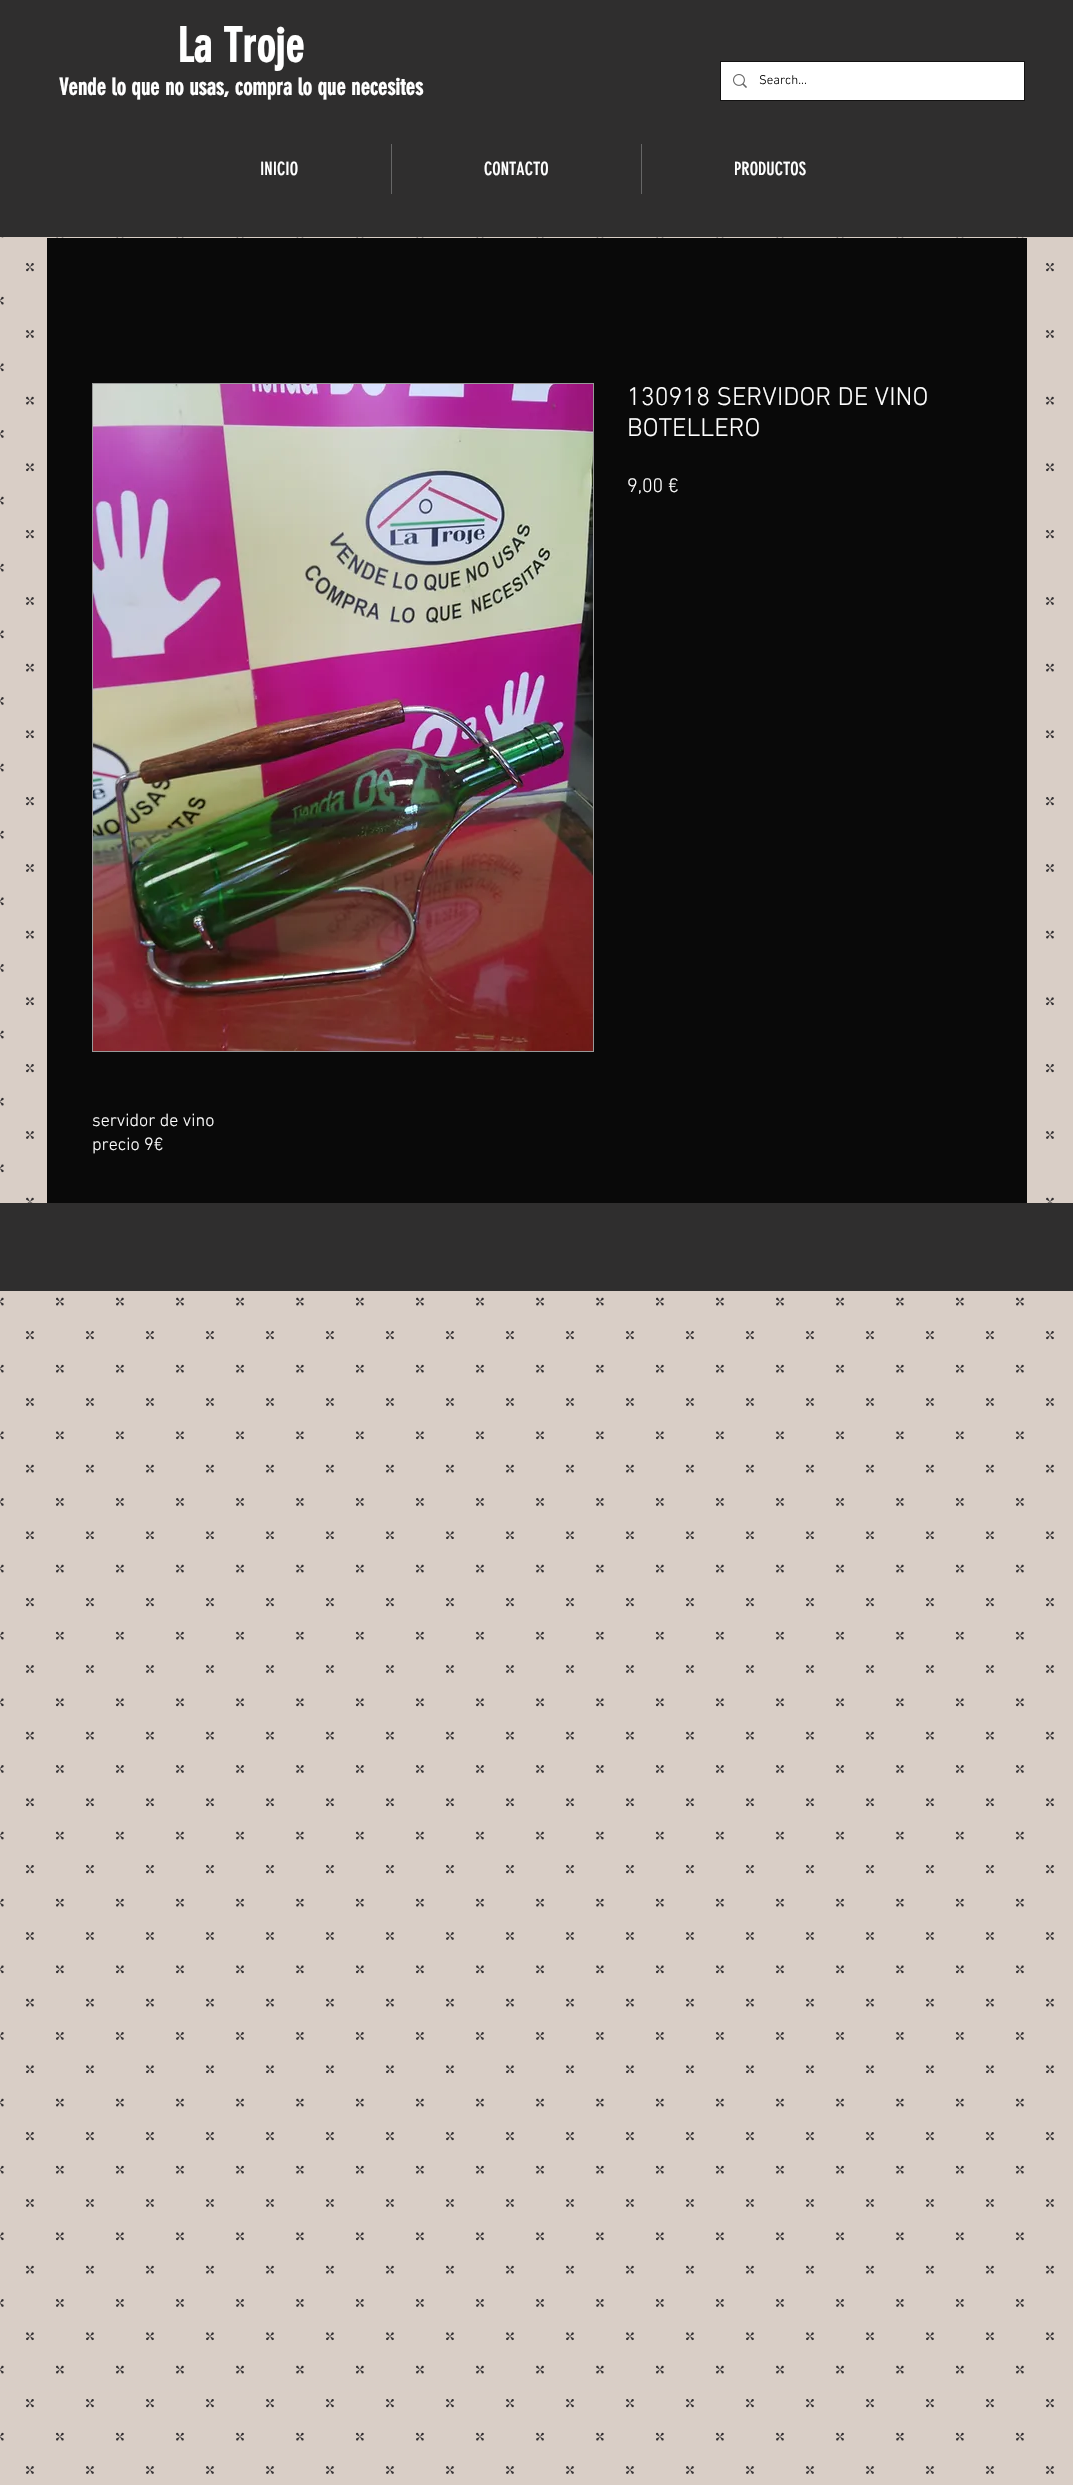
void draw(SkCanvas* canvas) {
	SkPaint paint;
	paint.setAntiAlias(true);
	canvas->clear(0xffd9cec6);
	paint.setColor(0xff2f2e2e);
	canvas->drawRect(SkRect::MakeXYWH(0, 0, 1073, 237), paint);
	SkFont f1(fontMgr->matchFamilyStyle("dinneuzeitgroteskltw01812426", SkFontStyle::Bold()), 47);
	f1.setSubpixel(true);
	paint.setColor(0xffffffff);
	canvas->drawString("La Troje", 177, 62, f1, paint);
	SkFont f2(fontMgr->matchFamilyStyle("dinneuzeitgroteskltw01812426", SkFontStyle::Bold()), 23);
	f2.setSubpixel(true);
	canvas->drawString("Vende lo que no usas, compra lo que necesites", 59, 95, f2, paint);
	paint.setStroke(true);
	paint.setStrokeWidth(1);
	paint.setColor(0xff131212);
	canvas->drawRect(SkRect::MakeXYWH(720.5, 61.5, 304, 39), paint);
	paint.setStroke(false);
	paint.setColor(0xffffffff);
	canvas->drawRect(SkRect::MakeXYWH(721, 62, 303, 38), paint);
	canvas->drawImageRect(SkImages::DeferredFromEncodedData(SkData::MakeFromFileName("img1.png")), SkRect::MakeXYWH(733, 74, 14, 14), SkSamplingOptions());
	SkFont f3(fontMgr->matchFamilyStyle("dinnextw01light", SkFontStyle(300, SkFontStyle::kNormal_Width, SkFontStyle::kUpright_Slant)), 13);
	f3.setSubpixel(true);
	paint.setColor(0xff000000);
	canvas->drawString("Search...", 759, 84, f3, paint);
	SkFont f4(fontMgr->matchFamilyStyle("dinneuzeitgroteskltw01812426", SkFontStyle::Normal()), 18);
	f4.setSubpixel(true);
	paint.setColor(0xffffffff);
	canvas->drawString("INICIO", 260, 175, f4, paint);
	paint.setColor(0xff666666);
	canvas->drawRect(SkRect::MakeXYWH(391, 144, 1, 50), paint);
	paint.setColor(0xffffffff);
	canvas->drawString("CONTACTO", 484, 175, f4, paint);
	paint.setColor(0xff666666);
	canvas->drawRect(SkRect::MakeXYWH(641, 144, 1, 50), paint);
	paint.setColor(0xffffffff);
	canvas->drawString("PRODUCTOS", 734, 175, f4, paint);
	canvas->drawImageRect(SkImages::DeferredFromEncodedData(SkData::MakeFromFileName("img3.png")), SkRect::MakeXYWH(0, 237, 1054, 2237), SkSamplingOptions());
	paint.setColor(0xff090909);
	canvas->drawRect(SkRect::MakeXYWH(47, 238, 980, 965), paint);
	SkFont f5(fontMgr->matchFamilyStyle("dinnextw01light", SkFontStyle(300, SkFontStyle::kNormal_Width, SkFontStyle::kUpright_Slant)), 26);
	f5.setSubpixel(true);
	paint.setColor(0xffffffff);
	canvas->drawString("130918 SERVIDOR DE VINO", 627, 405, f5, paint);
	canvas->drawString("BOTELLERO", 627, 436, f5, paint);
	SkFont f6(fontMgr->matchFamilyStyle("dinnextw01light", SkFontStyle(300, SkFontStyle::kNormal_Width, SkFontStyle::kUpright_Slant)), 20);
	f6.setSubpixel(true);
	canvas->drawString("9,00 €", 627, 492, f6, paint);
	paint.setStroke(true);
	paint.setColor(0xff999999);
	canvas->drawRect(SkRect::MakeXYWH(92.5, 383.5, 501, 668), paint);
	canvas->drawImageRect(SkImages::DeferredFromEncodedData(SkData::MakeFromFileName("img2.png")), SkRect::MakeXYWH(93, 384, 500, 667), SkSamplingOptions());
	SkFont f7(fontMgr->matchFamilyStyle("dinnextw01light", SkFontStyle(300, SkFontStyle::kNormal_Width, SkFontStyle::kUpright_Slant)), 18);
	f7.setSubpixel(true);
	paint.setStroke(false);
	paint.setColor(0xffffffff);
	canvas->drawString("servidor de vino", 92, 1126, f7, paint);
	canvas->drawString("precio 9€", 92, 1150, f7, paint);
	paint.setColor(0xff2f2e2e);
	canvas->drawRect(SkRect::MakeXYWH(0, 1203, 1073, 88), paint);
}
